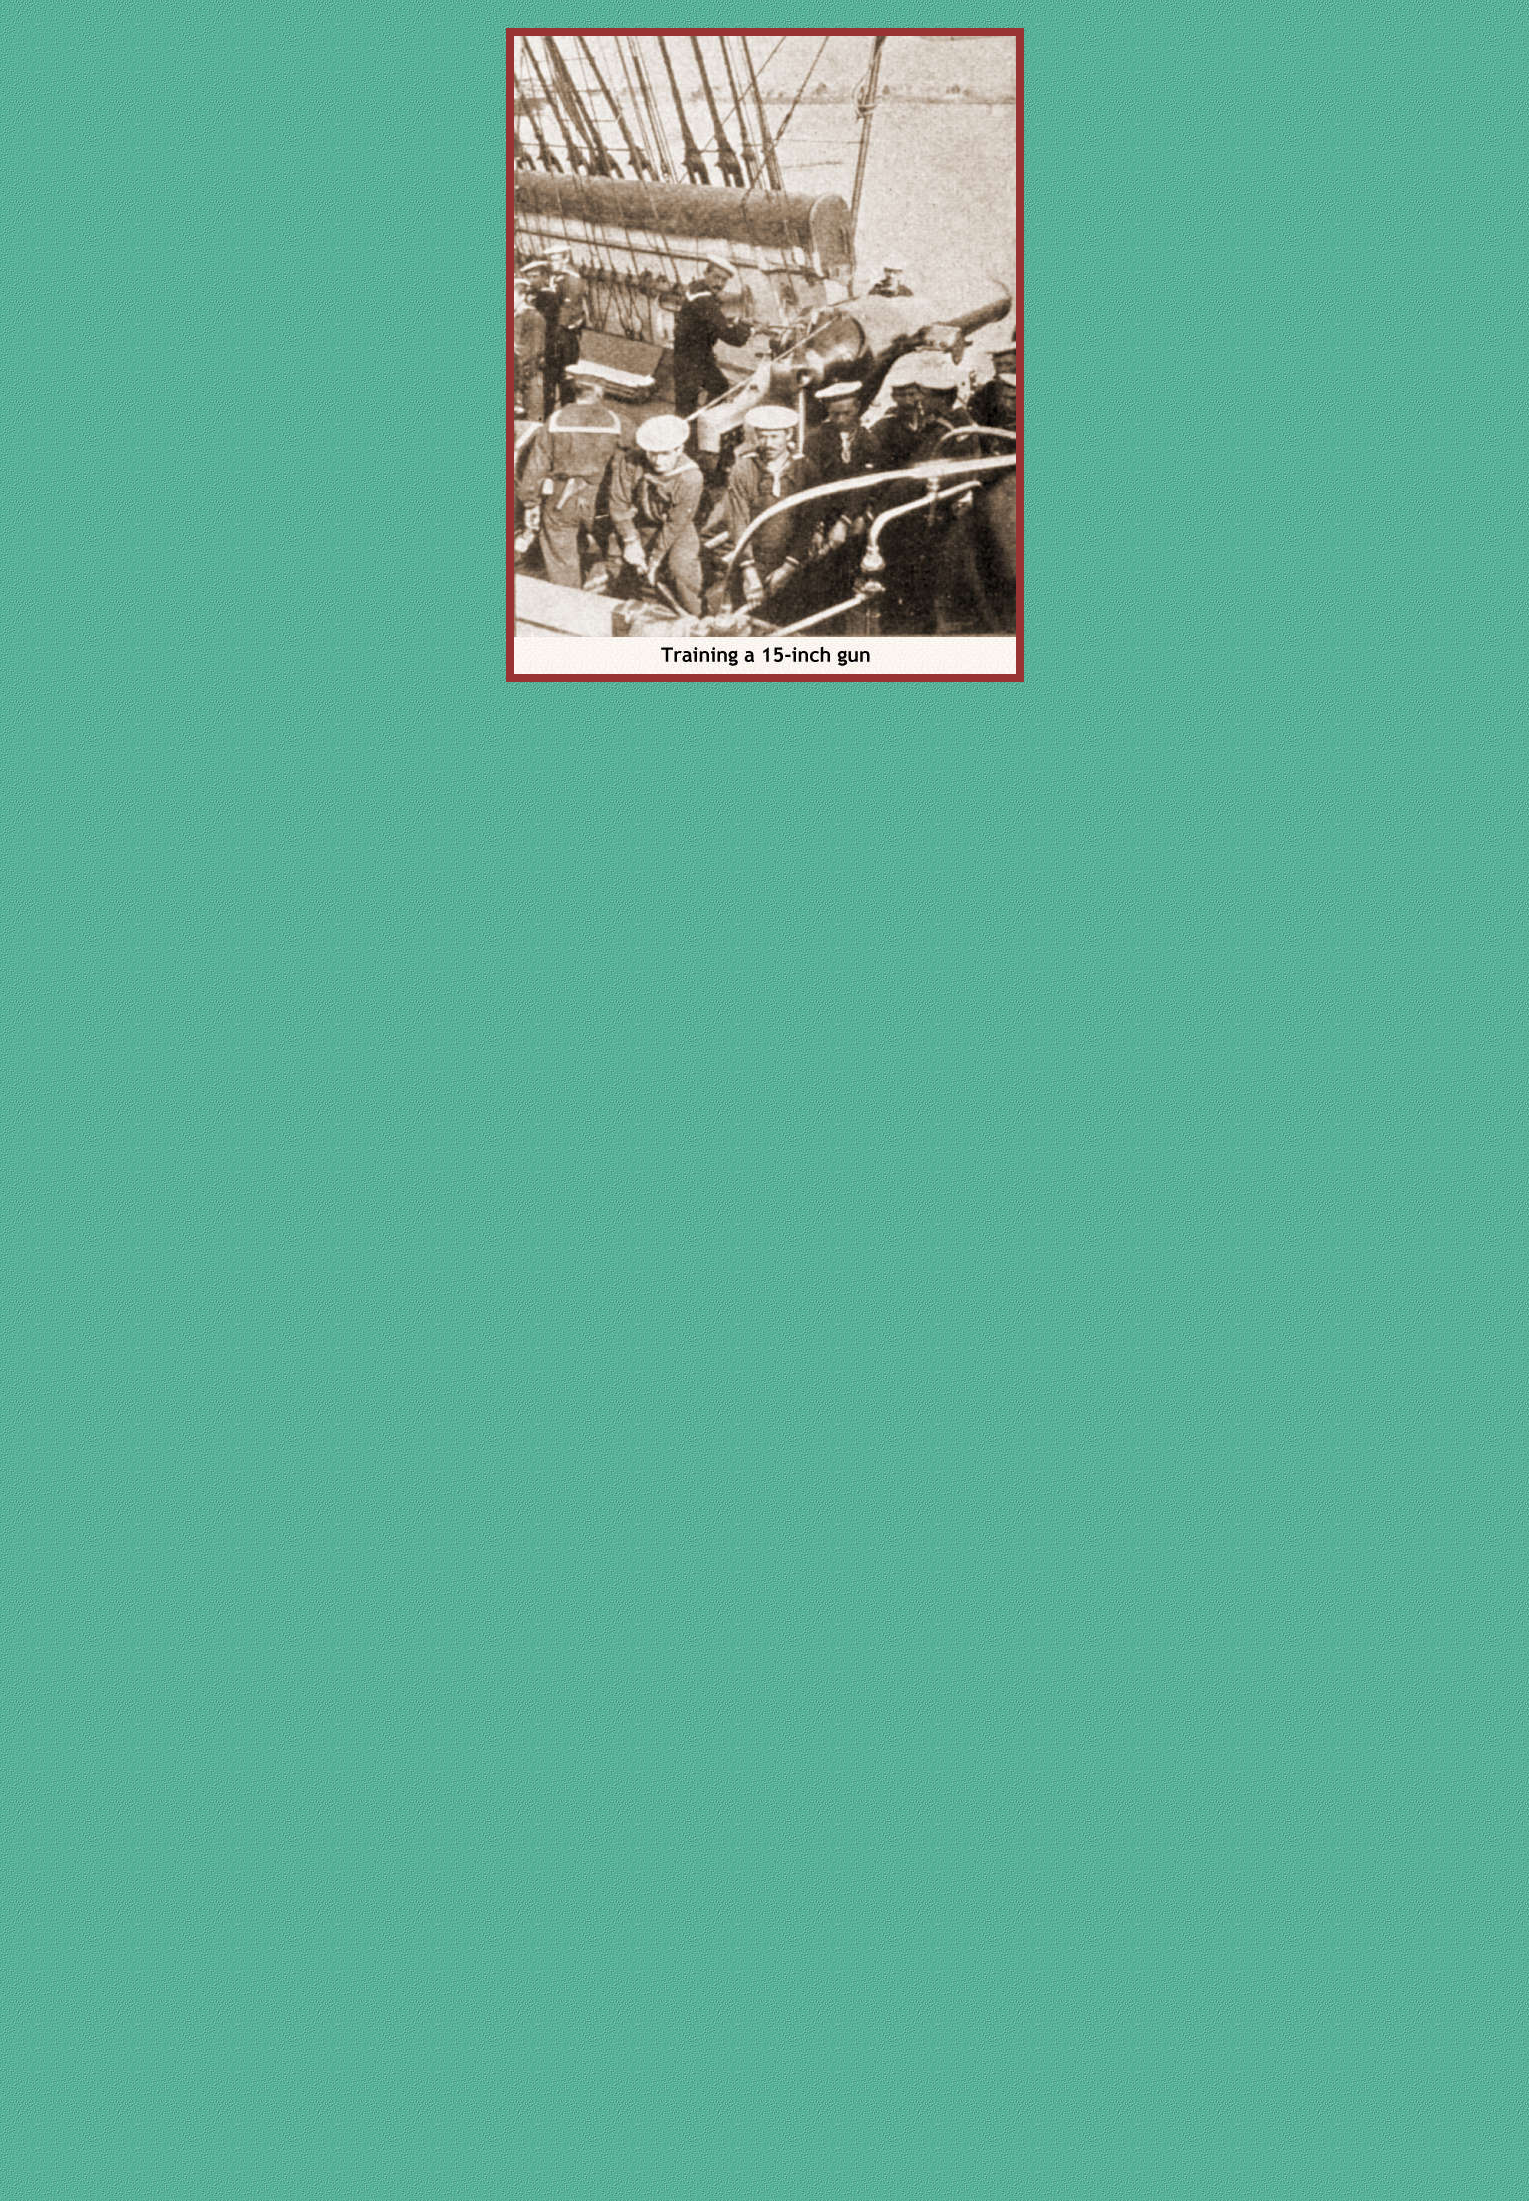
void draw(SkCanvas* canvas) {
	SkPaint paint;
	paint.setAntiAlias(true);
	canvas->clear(0xffffffff);
	canvas->drawImageRect(SkImages::DeferredFromEncodedData(SkData::MakeFromFileName("img1.png")), SkRect::MakeXYWH(0, 0, 1529, 2201), SkSamplingOptions());
	paint.setStroke(true);
	paint.setStrokeWidth(8);
	paint.setColor(0xff993333);
	canvas->drawRect(SkRect::MakeXYWH(510, 32, 510, 646), paint);
	canvas->drawImageRect(SkImages::DeferredFromEncodedData(SkData::MakeFromFileName("img2.png")), SkRect::MakeXYWH(514, 36, 502, 638), SkSamplingOptions());
}
